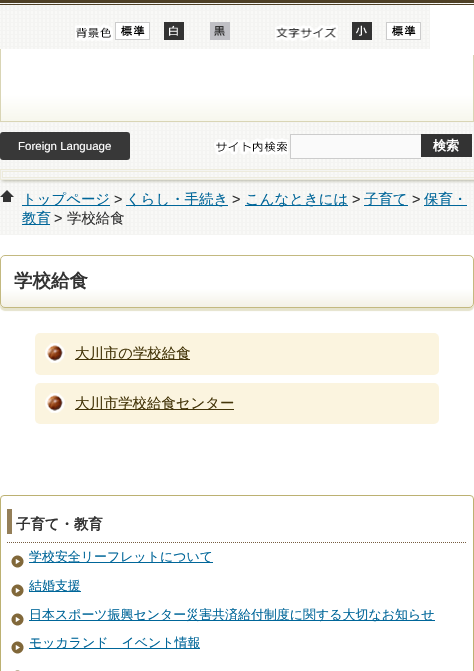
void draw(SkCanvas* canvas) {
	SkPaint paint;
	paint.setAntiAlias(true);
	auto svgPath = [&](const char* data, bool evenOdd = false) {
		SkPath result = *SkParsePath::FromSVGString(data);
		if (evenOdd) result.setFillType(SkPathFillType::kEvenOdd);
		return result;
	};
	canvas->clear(0xffffffff);
	canvas->drawImageRect(SkImages::DeferredFromEncodedData(SkData::MakeFromFileName("img1.png")), SkRect::MakeXYWH(0, 3, 474, 232), SkSamplingOptions());
	paint.setColor(0xff4f4126);
	canvas->drawRect(SkRect::MakeXYWH(0, 0, 474, 2), paint);
	canvas->save();
	canvas->clipRect(SkRect::MakeXYWH(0, 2, 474, 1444));
	canvas->clipRect(SkRect::MakeXYWH(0, 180, 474, 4));
	paint.setColor(0xffb5b5a4);
	paint.setMaskFilter(SkMaskFilter::MakeBlur(kNormal_SkBlurStyle, 1.5));
	canvas->drawRect(SkRect::MakeXYWH(2, 1, 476, 180), paint);
	paint.setMaskFilter(nullptr);
	canvas->restore();
	paint.setColor(0xff4f4126);
	canvas->drawRect(SkRect::MakeXYWH(0, 2, 474, 1), paint);
	canvas->drawRect(SkRect::MakeXYWH(0, 4, 474, 1), paint);
	paint.setStroke(true);
	paint.setStrokeWidth(1);
	paint.setColor(0xffedebdc);
	canvas->drawRect(SkRect::MakeXYWH(0.5, 169.5, 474, 10), paint);
	canvas->drawRect(SkRect::MakeXYWH(2.5, 171.5, 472, 6), paint);
	paint.setStroke(false);
	{
		const SkColor colors[] = {0xffffffff, 0xfff7f7ed};
		const float stops[] = {0.63, 1};
		const SkPoint ends[] = {{237, 49}, {237, 121}};
		paint.setShader(SkGradientShader::MakeLinear(ends, colors, stops, 2, SkTileMode::kClamp));
		paint.setAlpha(255);
	}
	canvas->drawRect(SkRect::MakeXYWH(1, 49, 472, 72), paint);
	paint.setShader(nullptr);
	paint.setColor(0xffd9d5b5);
	canvas->drawRect(SkRect::MakeXYWH(473, 49, 1, 73), paint);
	paint.setColor(0xffffffff);
	canvas->drawRect(SkRect::MakeXYWH(430, 5, 44, 50), paint);
	paint.setColor(0xffd9d5b5);
	canvas->drawRect(SkRect::MakeXYWH(0, 121, 474, 1), paint);
	canvas->drawRect(SkRect::MakeXYWH(0, 49, 1, 73), paint);
	canvas->drawImageRect(SkImages::DeferredFromEncodedData(SkData::MakeFromFileName("img2.png")), SkRect::MakeXYWH(75, 24, 38, 17), SkSamplingOptions());
	canvas->drawImageRect(SkImages::DeferredFromEncodedData(SkData::MakeFromFileName("img3.png")), SkRect::MakeXYWH(115, 22, 35, 18), SkSamplingOptions());
	canvas->drawImageRect(SkImages::DeferredFromEncodedData(SkData::MakeFromFileName("img4.png")), SkRect::MakeXYWH(164, 22, 20, 18), SkSamplingOptions());
	canvas->drawImageRect(SkImages::DeferredFromEncodedData(SkData::MakeFromFileName("img5.png")), SkRect::MakeXYWH(210, 22, 20, 18), SkSamplingOptions());
	canvas->drawImageRect(SkImages::DeferredFromEncodedData(SkData::MakeFromFileName("img6.png")), SkRect::MakeXYWH(275, 24, 63, 17), SkSamplingOptions());
	canvas->drawImageRect(SkImages::DeferredFromEncodedData(SkData::MakeFromFileName("img7.png")), SkRect::MakeXYWH(352, 22, 20, 18), SkSamplingOptions());
	canvas->drawImageRect(SkImages::DeferredFromEncodedData(SkData::MakeFromFileName("img3.png")), SkRect::MakeXYWH(386, 22, 35, 18), SkSamplingOptions());
	paint.setColor(0xff383838);
	canvas->drawRoundRect(SkRect::MakeXYWH(0, 132, 130, 28), 3, 3, paint);
	SkFont f1(fontMgr->matchFamilyStyle("Liberation Sans", SkFontStyle::Normal()), 11.5);
	f1.setSubpixel(true);
	paint.setColor(0xffffffff);
	canvas->drawString("Foreign Language", 18, 150, f1, paint);
	canvas->drawImageRect(SkImages::DeferredFromEncodedData(SkData::MakeFromFileName("img8.png")), SkRect::MakeXYWH(214, 138, 74, 17), SkSamplingOptions());
	paint.setColor(0xfffafafa);
	canvas->drawRect(SkRect::MakeXYWH(291, 135, 130, 23), paint);
	paint.setColor(0xffcccccc);
	canvas->drawRect(SkRect::MakeXYWH(290, 134, 131, 1), paint);
	canvas->drawRect(SkRect::MakeXYWH(290, 158, 131, 1), paint);
	canvas->drawRect(SkRect::MakeXYWH(290, 134, 1, 25), paint);
	paint.setColor(0xff333333);
	canvas->drawRect(SkRect::MakeXYWH(421, 134, 51, 23), paint);
	SkFont f2(fontMgr->matchFamilyStyle("WenQuanYi Zen Hei", SkFontStyle::Bold()), 13);
	f2.setSubpixel(true);
	paint.setColor(0xffffffff);
	canvas->drawString("検索", 433, 150, f2, paint);
	paint.setColor(0xff333333);
	canvas->drawPath(svgPath("M14 197H0L7 190Z"), paint);
	paint.setColor(0xff006699);
	canvas->drawRect(SkRect::MakeXYWH(22, 205, 88, 1), paint);
	SkFont f3(fontMgr->matchFamilyStyle("WenQuanYi Zen Hei", SkFontStyle(500, SkFontStyle::kNormal_Width, SkFontStyle::kUpright_Slant)), 14.4);
	f3.setSubpixel(true);
	canvas->drawString("トップページ", 22, 204, f3, paint);
	SkFont f4(fontMgr->matchFamilyStyle("Liberation Sans", SkFontStyle::Normal()), 14.4);
	f4.setSubpixel(true);
	paint.setColor(0xff333333);
	canvas->drawString(">", 114, 204, f4, paint);
	paint.setColor(0xff006699);
	canvas->drawRect(SkRect::MakeXYWH(126, 205, 102, 1), paint);
	canvas->drawString("くらし・手続き", 126, 204, f3, paint);
	paint.setColor(0xff333333);
	canvas->drawString(">", 232, 204, f4, paint);
	paint.setColor(0xff006699);
	canvas->drawRect(SkRect::MakeXYWH(245, 205, 103, 1), paint);
	canvas->drawString("こんなときには", 245, 204, f3, paint);
	paint.setColor(0xff333333);
	canvas->drawString(">", 352, 204, f4, paint);
	paint.setColor(0xff006699);
	canvas->drawRect(SkRect::MakeXYWH(364, 205, 44, 1), paint);
	canvas->drawString("子育て", 364, 204, f3, paint);
	paint.setColor(0xff333333);
	canvas->drawString(">", 412, 204, f4, paint);
	paint.setColor(0xff006699);
	canvas->drawRect(SkRect::MakeXYWH(424, 205, 43, 1), paint);
	canvas->drawString("保育・", 424, 204, f3, paint);
	paint.setColor(0xff333333);
	canvas->drawRect(SkRect::MakeXYWH(3, 197, 8, 3), paint);
	canvas->drawRect(SkRect::MakeXYWH(7, 196, 4, 6), paint);
	canvas->drawRect(SkRect::MakeXYWH(3, 200, 8, 2), paint);
	paint.setColor(0xff006699);
	canvas->drawRect(SkRect::MakeXYWH(22, 224, 28, 1), paint);
	canvas->drawString("教育", 22, 223, f3, paint);
	paint.setColor(0xff333333);
	canvas->drawString(">", 54, 223, f4, paint);
	canvas->drawString("学校給食", 67, 223, f3, paint);
	paint.setColor(0xffe5e3cc);
	paint.setMaskFilter(SkMaskFilter::MakeBlur(kNormal_SkBlurStyle, 0.5));
	canvas->drawRoundRect(SkRect::MakeXYWH(0, 258, 474, 53), 5, 5, paint);
	paint.setMaskFilter(nullptr);
	canvas->save();
	canvas->clipPath(svgPath("M5 255H469C472 255 474 257 474 260V303C474 306 472 308 469 308H5C2 308 0 306 0 303V260C0 257 2 255 5 255Z"), true);
	{
		const SkColor colors[] = {0xffffffff, 0xffffffff, 0xfff3f1e6};
		const float stops[] = {0, 0.64, 1};
		const SkPoint ends[] = {{237, 256}, {237, 307}};
		paint.setShader(SkGradientShader::MakeLinear(ends, colors, stops, 3, SkTileMode::kClamp));
		paint.setAlpha(255);
	}
	canvas->drawRect(SkRect::MakeXYWH(0, 256, 474, 51), paint);
	canvas->restore();
	paint.setStroke(true);
	paint.setShader(nullptr);
	paint.setColor(0xffc3b980);
	canvas->drawRoundRect(SkRect::MakeXYWH(0.5, 255.5, 473, 52), 4.5, 4.5, paint);
	SkFont f5(fontMgr->matchFamilyStyle("WenQuanYi Zen Hei", SkFontStyle::Bold()), 18.5);
	f5.setSubpixel(true);
	paint.setStroke(false);
	paint.setColor(0xff333333);
	canvas->drawString("学校給食", 14, 287, f5, paint);
	paint.setColor(0xfffbf4df);
	canvas->drawRoundRect(SkRect::MakeXYWH(35, 333, 404, 42), 5, 5, paint);
	canvas->drawImageRect(SkImages::DeferredFromEncodedData(SkData::MakeFromFileName("img9.png")), SkRect::MakeXYWH(45, 343, 20, 20), SkSamplingOptions());
	paint.setColor(0xff443509);
	canvas->drawRect(SkRect::MakeXYWH(75, 359, 115, 1), paint);
	canvas->drawString("大川市の学校給食", 75, 358, f3, paint);
	paint.setColor(0xfffbf4df);
	canvas->drawRoundRect(SkRect::MakeXYWH(35, 383, 404, 41), 5, 5, paint);
	canvas->drawImageRect(SkImages::DeferredFromEncodedData(SkData::MakeFromFileName("img9.png")), SkRect::MakeXYWH(45, 393, 20, 20), SkSamplingOptions());
	paint.setColor(0xff443509);
	canvas->drawRect(SkRect::MakeXYWH(75, 409, 159, 1), paint);
	canvas->drawString("大川市学校給食センター", 75, 408, f3, paint);
	paint.setStroke(true);
	paint.setColor(0xffbcb172);
	canvas->drawRoundRect(SkRect::MakeXYWH(0.5, 495.5, 473, 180), 3.5, 3.5, paint);
	paint.setColor(0xff775d41);
	paint.setPathEffect(SkDashPathEffect::Make({{1, 1}}, 0));
	canvas->drawPath(svgPath("M7 542.5H467"), paint);
	paint.setPathEffect(nullptr);
	paint.setStroke(false);
	paint.setColor(0xff947f58);
	canvas->drawRect(SkRect::MakeXYWH(7, 509, 5, 25), paint);
	SkFont f6(fontMgr->matchFamilyStyle("WenQuanYi Zen Hei", SkFontStyle::Bold()), 14.4);
	f6.setSubpixel(true);
	paint.setColor(0xff333333);
	canvas->drawString("子育て・教育", 16, 529, f6, paint);
	canvas->drawImageRect(SkImages::DeferredFromEncodedData(SkData::MakeFromFileName("img10.png")), SkRect::MakeXYWH(11, 555, 13, 13), SkSamplingOptions());
	paint.setColor(0xff006699);
	canvas->drawRect(SkRect::MakeXYWH(29, 562, 184, 1), paint);
	SkFont f7(fontMgr->matchFamilyStyle("WenQuanYi Zen Hei", SkFontStyle(500, SkFontStyle::kNormal_Width, SkFontStyle::kUpright_Slant)), 12.95);
	f7.setSubpixel(true);
	canvas->drawString("学校安全リーフレットについて", 29, 561, f7, paint);
	canvas->drawImageRect(SkImages::DeferredFromEncodedData(SkData::MakeFromFileName("img10.png")), SkRect::MakeXYWH(11, 584, 13, 13), SkSamplingOptions());
	canvas->drawRect(SkRect::MakeXYWH(29, 591, 52, 1), paint);
	canvas->drawString("結婚支援", 29, 590, f7, paint);
	canvas->drawImageRect(SkImages::DeferredFromEncodedData(SkData::MakeFromFileName("img10.png")), SkRect::MakeXYWH(11, 613, 13, 13), SkSamplingOptions());
	canvas->drawRect(SkRect::MakeXYWH(29, 620, 406, 1), paint);
	canvas->drawString("日本スポーツ振興センター災害共済給付制度に関する大切なお知らせ", 29, 619, f7, paint);
	canvas->drawImageRect(SkImages::DeferredFromEncodedData(SkData::MakeFromFileName("img10.png")), SkRect::MakeXYWH(11, 641, 13, 13), SkSamplingOptions());
	canvas->drawRect(SkRect::MakeXYWH(29, 648, 171, 1), paint);
	canvas->drawString("モッカランド　イベント情報", 29, 647, f7, paint);
	canvas->drawImageRect(SkImages::DeferredFromEncodedData(SkData::MakeFromFileName("img11.png")), SkRect::MakeXYWH(15, 670, 5, 1), SkSamplingOptions());
}
